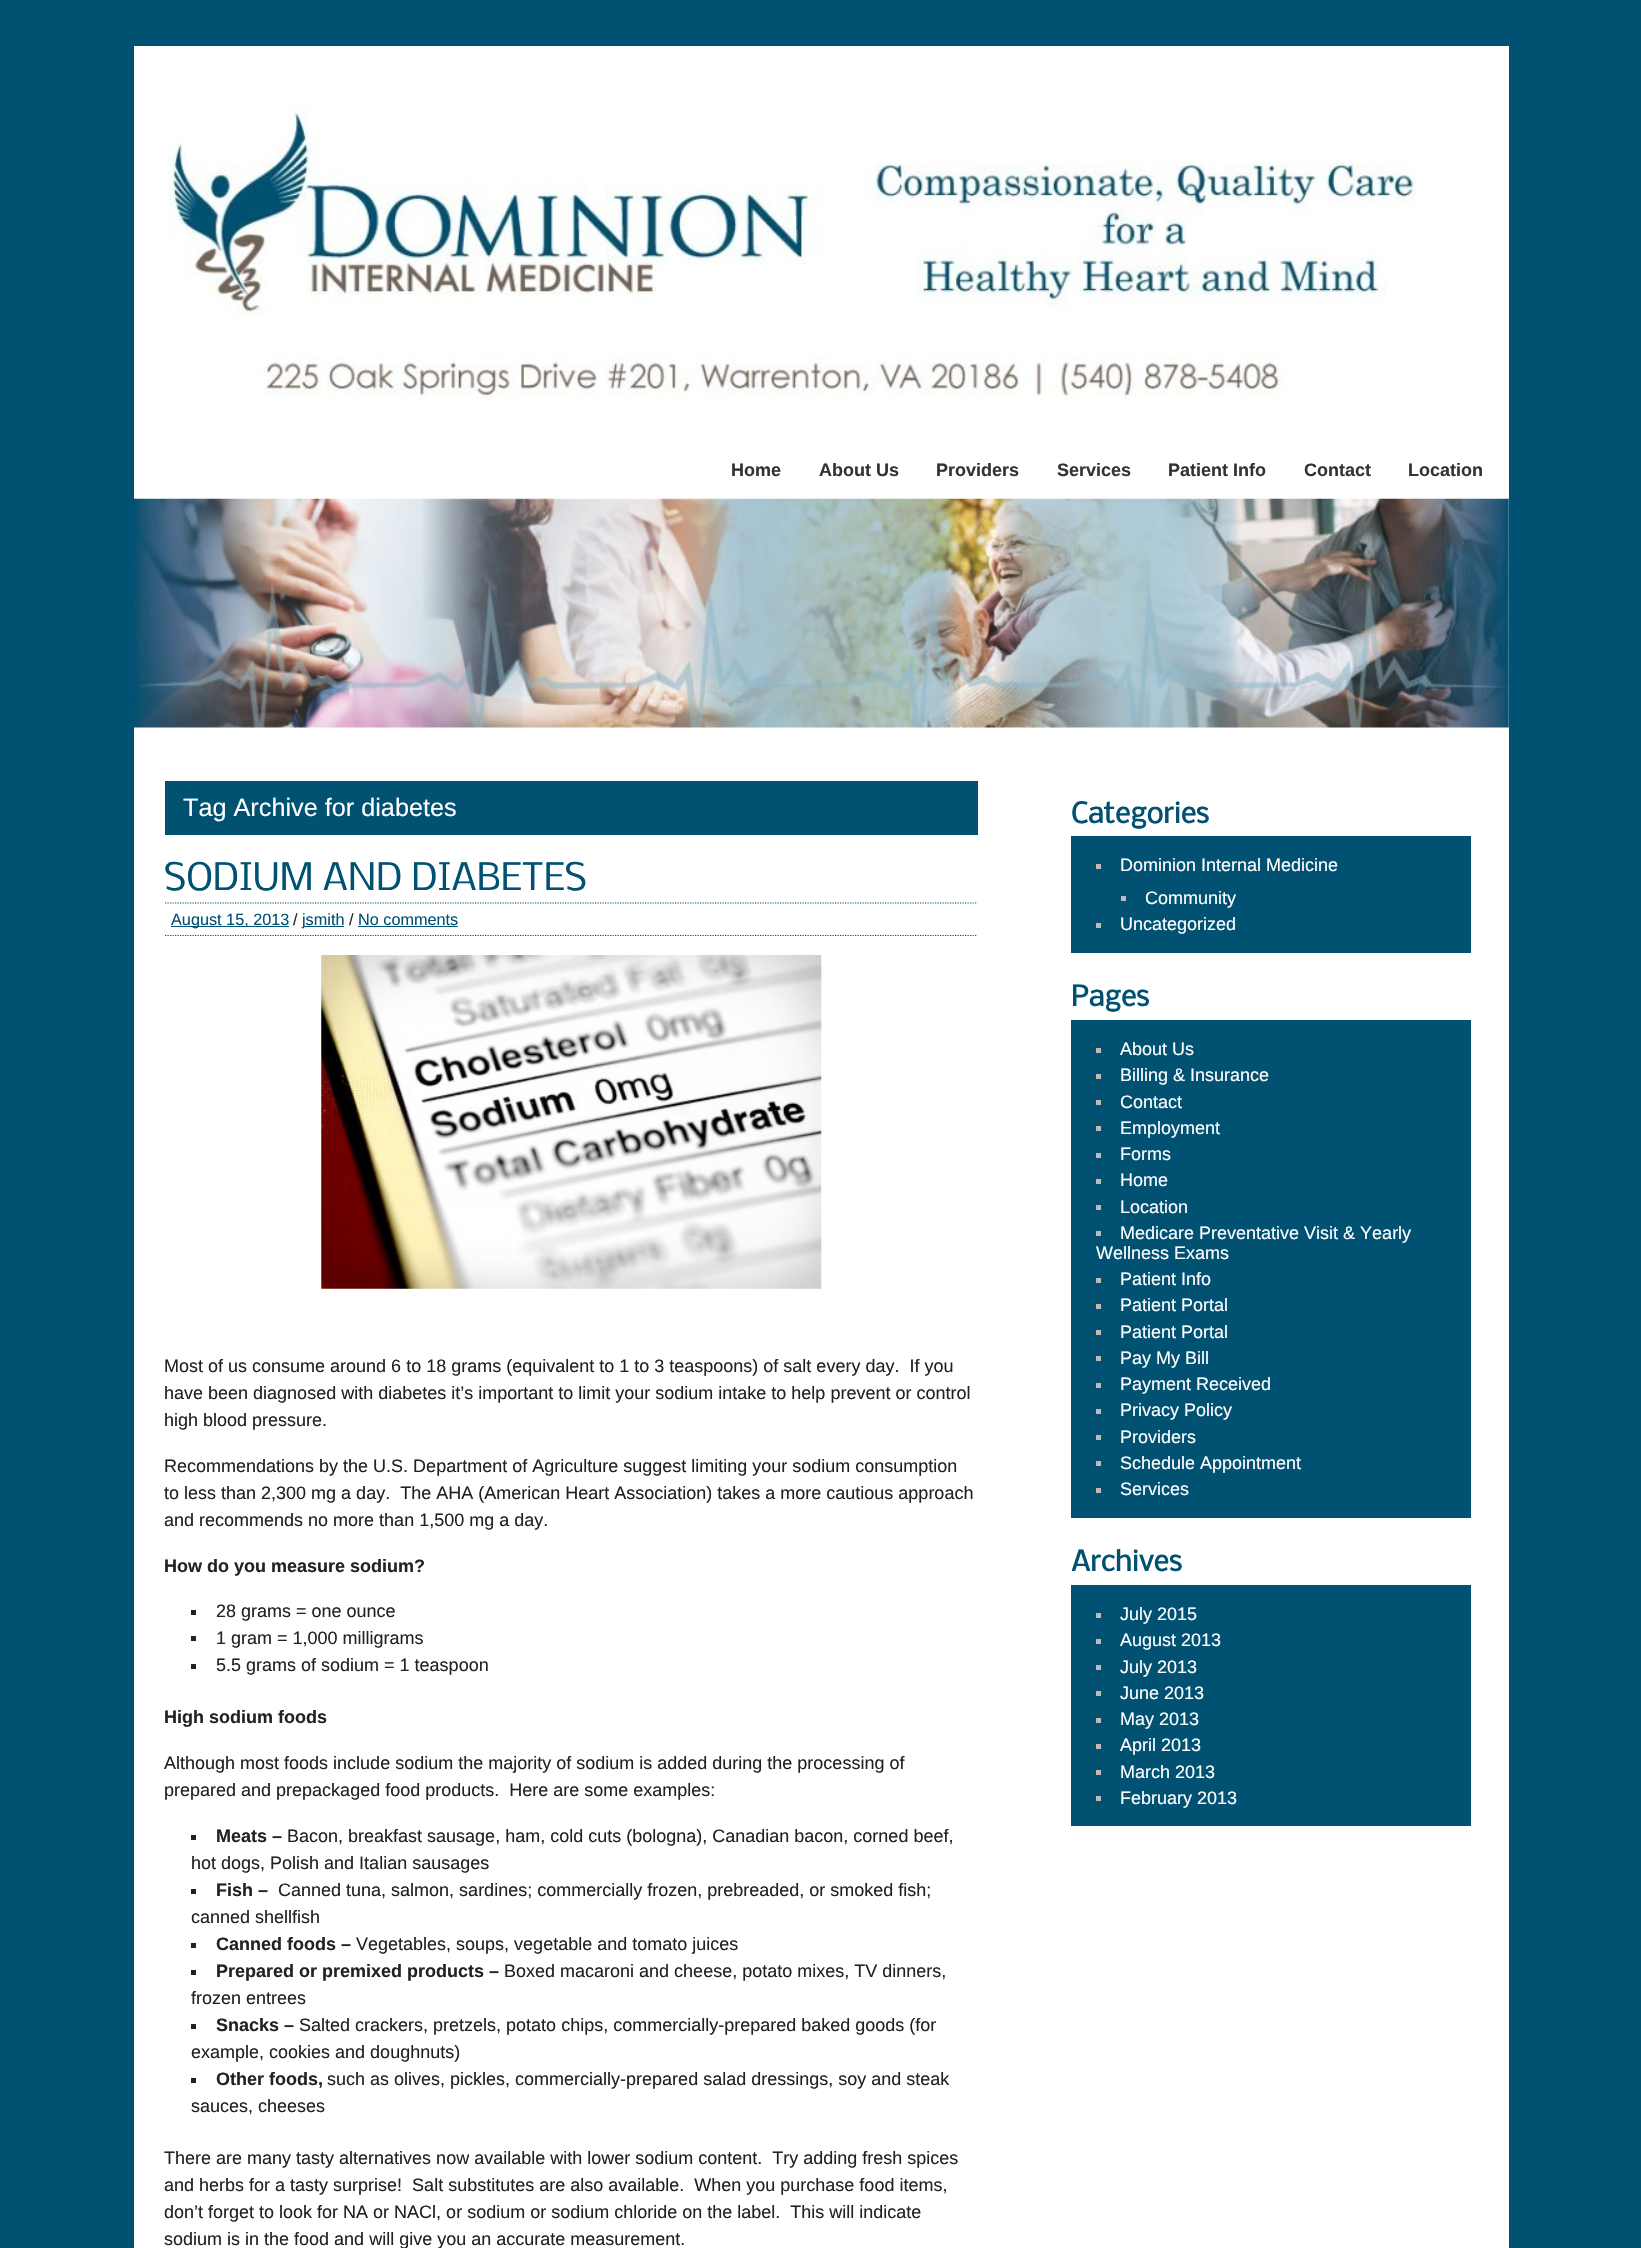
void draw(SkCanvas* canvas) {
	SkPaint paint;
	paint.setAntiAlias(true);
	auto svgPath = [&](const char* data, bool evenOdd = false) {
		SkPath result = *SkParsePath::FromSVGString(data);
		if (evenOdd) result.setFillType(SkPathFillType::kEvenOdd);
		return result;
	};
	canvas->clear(0xff005172);
	paint.setColor(0xffffffff);
	canvas->drawRect(SkRect::MakeXYWH(134, 46, 1375, 2202), paint);
	canvas->drawImageRect(SkImages::DeferredFromEncodedData(SkData::MakeFromFileName("img1.png")), SkRect::MakeXYWH(166, 105, 1251, 298), SkSamplingOptions());
	SkFont f1(fontMgr->matchFamilyStyle("Liberation Sans", SkFontStyle::Bold()), 18);
	f1.setSubpixel(true);
	paint.setColor(0xff333333);
	canvas->drawString("Home", 731, 476, f1, paint);
	canvas->drawString("About Us", 819, 476, f1, paint);
	canvas->drawString("Providers", 936, 476, f1, paint);
	canvas->drawString("Services", 1057, 476, f1, paint);
	canvas->drawString("Patient Info", 1168, 476, f1, paint);
	canvas->drawString("Contact", 1304, 476, f1, paint);
	canvas->drawString("Location", 1408, 476, f1, paint);
	canvas->drawImageRect(SkImages::DeferredFromEncodedData(SkData::MakeFromFileName("img2.png")), SkRect::MakeXYWH(134, 498, 1375, 230), SkSamplingOptions());
	paint.setColor(0xff005172);
	canvas->drawRect(SkRect::MakeXYWH(165, 781, 813, 54), paint);
	SkFont f2(fontMgr->matchFamilyStyle("Liberation Sans", SkFontStyle::Normal()), 25.25);
	f2.setSubpixel(true);
	paint.setColor(0xffffffff);
	canvas->drawString("Tag Archive for diabetes", 183, 816, f2, paint);
	SkFont f3(fontMgr->matchFamilyStyle("Nobile", SkFontStyle::Normal()), 36);
	f3.setSubpixel(true);
	paint.setColor(0xff005172);
	canvas->drawString("SODIUM AND DIABETES", 164, 890, f3, paint);
	paint.setStroke(true);
	paint.setStrokeWidth(1.2);
	paint.setPathEffect(SkDashPathEffect::Make({{1.25f, 1.25f}}, 0));
	canvas->drawPath(svgPath("M165 903H977.5"), paint);
	paint.setPathEffect(nullptr);
	paint.setPathEffect(SkDashPathEffect::Make({{1.25f, 1.25f}}, 0));
	canvas->drawPath(svgPath("M165 935.5H977.5"), paint);
	paint.setPathEffect(nullptr);
	paint.setStroke(false);
	canvas->drawRect(SkRect::MakeXYWH(171, 926, 118, 1), paint);
	SkFont f4(fontMgr->matchFamilyStyle("Liberation Sans", SkFontStyle::Normal()), 16.25);
	f4.setSubpixel(true);
	canvas->drawString("August 15, 2013", 171, 925, f4, paint);
	paint.setColor(0xff222222);
	canvas->drawString("/", 293, 925, f4, paint);
	paint.setColor(0xff005172);
	canvas->drawRect(SkRect::MakeXYWH(303, 926, 41, 1), paint);
	canvas->drawString("jsmith", 302, 925, f4, paint);
	paint.setColor(0xff222222);
	canvas->drawString("/", 349, 925, f4, paint);
	paint.setColor(0xff005172);
	canvas->drawString("No comments", 358, 925, f4, paint);
	canvas->drawRect(SkRect::MakeXYWH(358, 926, 100, 1), paint);
	canvas->drawImageRect(SkImages::DeferredFromEncodedData(SkData::MakeFromFileName("img3.png")), SkRect::MakeXYWH(321, 955, 501, 334), SkSamplingOptions());
	SkFont f5(fontMgr->matchFamilyStyle("Liberation Sans", SkFontStyle::Normal()), 18);
	f5.setSubpixel(true);
	paint.setColor(0xff222222);
	canvas->drawString("Most of us consume around 6 to 18 grams (equivalent to 1 to 3 teaspoons) of salt every day.  If you", 164, 1372, f5, paint);
	canvas->drawString("have been diagnosed with diabetes it’s important to limit your sodium intake to help prevent or control", 164, 1399, f5, paint);
	canvas->drawString("high blood pressure.", 164, 1426, f5, paint);
	canvas->drawString("Recommendations by the U.S. Department of Agriculture suggest limiting your sodium consumption", 164, 1472, f5, paint);
	canvas->drawString("to less than 2,300 mg a day.  The AHA (American Heart Association) takes a more cautious approach", 164, 1499, f5, paint);
	canvas->drawString("and recommends no more than 1,500 mg a day.", 164, 1526, f5, paint);
	canvas->drawString("How do you measure sodium?", 164, 1572, f1, paint);
	canvas->drawRect(SkRect::MakeXYWH(191, 1610, 5, 5), paint);
	canvas->drawString("28 grams = one ounce", 216, 1617, f5, paint);
	canvas->drawRect(SkRect::MakeXYWH(191, 1636, 5, 5), paint);
	canvas->drawString("1 gram = 1,000 milligrams", 216, 1644, f5, paint);
	canvas->drawRect(SkRect::MakeXYWH(191, 1664, 5, 5), paint);
	canvas->drawString("5.5 grams of sodium = 1 teaspoon", 216, 1671, f5, paint);
	canvas->drawString("High sodium foods", 164, 1723, f1, paint);
	canvas->drawString("Although most foods include sodium the majority of sodium is added during the processing of", 164, 1769, f5, paint);
	canvas->drawString("prepared and prepackaged food products.  Here are some examples:", 164, 1796, f5, paint);
	canvas->drawRect(SkRect::MakeXYWH(191, 1835, 5, 5), paint);
	canvas->drawString("Meats –", 216, 1842, f1, paint);
	canvas->drawString("Bacon, breakfast sausage, ham, cold cuts (bologna), Canadian bacon, corned beef,", 287, 1842, f5, paint);
	canvas->drawString("hot dogs, Polish and Italian sausages", 191, 1869, f5, paint);
	canvas->drawRect(SkRect::MakeXYWH(191, 1889, 5, 5), paint);
	canvas->drawString("Fish –", 216, 1896, f1, paint);
	canvas->drawString("Canned tuna, salmon, sardines; commercially frozen, prebreaded, or smoked fish;", 278, 1896, f5, paint);
	canvas->drawString("canned shellfish", 191, 1923, f5, paint);
	canvas->drawRect(SkRect::MakeXYWH(191, 1943, 5, 5), paint);
	canvas->drawString("Canned foods –", 216, 1950, f1, paint);
	canvas->drawString("Vegetables, soups, vegetable and tomato juices", 356, 1950, f5, paint);
	canvas->drawRect(SkRect::MakeXYWH(191, 1970, 5, 5), paint);
	canvas->drawString("Prepared or premixed products –", 216, 1977, f1, paint);
	canvas->drawString("Boxed macaroni and cheese, potato mixes, TV dinners,", 504, 1977, f5, paint);
	canvas->drawString("frozen entrees", 191, 2004, f5, paint);
	canvas->drawRect(SkRect::MakeXYWH(191, 2024, 5, 5), paint);
	canvas->drawString("Snacks –", 216, 2031, f1, paint);
	canvas->drawString("Salted crackers, pretzels, potato chips, commercially-prepared baked goods (for", 299, 2031, f5, paint);
	canvas->drawString("example, cookies and doughnuts)", 191, 2058, f5, paint);
	canvas->drawRect(SkRect::MakeXYWH(191, 2078, 5, 5), paint);
	canvas->drawString("Other foods,", 216, 2085, f1, paint);
	canvas->drawString("such as olives, pickles, commercially-prepared salad dressings, soy and steak", 327, 2085, f5, paint);
	canvas->drawString("sauces, cheeses", 191, 2112, f5, paint);
	canvas->drawString("There are many tasty alternatives now available with lower sodium content.  Try adding fresh spices", 164, 2164, f5, paint);
	canvas->drawString("and herbs for a tasty surprise!  Salt substitutes are also available.  When you purchase food items,", 164, 2191, f5, paint);
	canvas->drawString("don’t forget to look for NA or NACl, or sodium or sodium chloride on the label.  This will indicate", 164, 2218, f5, paint);
	canvas->drawString("sodium is in the food and will give you an accurate measurement.", 164, 2245, f5, paint);
	SkFont f6(fontMgr->matchFamilyStyle("Nobile", SkFontStyle::Bold()), 27);
	f6.setSubpixel(true);
	paint.setColor(0xff005172);
	canvas->drawString("Categories", 1071, 823, f6, paint);
	canvas->drawRect(SkRect::MakeXYWH(1071, 836, 400, 117), paint);
	paint.setColor(0xffbbbbbb);
	canvas->drawRect(SkRect::MakeXYWH(1096, 864, 5, 5), paint);
	paint.setColor(0xffffffff);
	canvas->drawString("Dominion Internal Medicine", 1120, 871, f5, paint);
	paint.setColor(0xffbbbbbb);
	canvas->drawRect(SkRect::MakeXYWH(1121, 896, 5, 5), paint);
	paint.setColor(0xffffffff);
	canvas->drawString("Community", 1145, 904, f5, paint);
	paint.setColor(0xffbbbbbb);
	canvas->drawRect(SkRect::MakeXYWH(1096, 923, 5, 5), paint);
	paint.setColor(0xffffffff);
	canvas->drawString("Uncategorized", 1120, 930, f5, paint);
	paint.setColor(0xff005172);
	canvas->drawString("Pages", 1071, 1006, f6, paint);
	canvas->drawRect(SkRect::MakeXYWH(1071, 1020, 400, 498), paint);
	paint.setColor(0xffbbbbbb);
	canvas->drawRect(SkRect::MakeXYWH(1096, 1048, 5, 5), paint);
	paint.setColor(0xffffffff);
	canvas->drawString("About Us", 1120, 1055, f5, paint);
	paint.setColor(0xffbbbbbb);
	canvas->drawRect(SkRect::MakeXYWH(1096, 1074, 5, 5), paint);
	paint.setColor(0xffffffff);
	canvas->drawString("Billing & Insurance", 1120, 1081, f5, paint);
	paint.setColor(0xffbbbbbb);
	canvas->drawRect(SkRect::MakeXYWH(1096, 1100, 5, 5), paint);
	paint.setColor(0xffffffff);
	canvas->drawString("Contact", 1120, 1108, f5, paint);
	paint.setColor(0xffbbbbbb);
	canvas->drawRect(SkRect::MakeXYWH(1096, 1126, 5, 5), paint);
	paint.setColor(0xffffffff);
	canvas->drawString("Employment", 1120, 1134, f5, paint);
	paint.setColor(0xffbbbbbb);
	canvas->drawRect(SkRect::MakeXYWH(1096, 1153, 5, 5), paint);
	paint.setColor(0xffffffff);
	canvas->drawString("Forms", 1120, 1160, f5, paint);
	paint.setColor(0xffbbbbbb);
	canvas->drawRect(SkRect::MakeXYWH(1096, 1179, 5, 5), paint);
	paint.setColor(0xffffffff);
	canvas->drawString("Home", 1120, 1186, f5, paint);
	paint.setColor(0xffbbbbbb);
	canvas->drawRect(SkRect::MakeXYWH(1096, 1205, 5, 5), paint);
	paint.setColor(0xffffffff);
	canvas->drawString("Location", 1120, 1213, f5, paint);
	paint.setColor(0xffbbbbbb);
	canvas->drawRect(SkRect::MakeXYWH(1096, 1231, 5, 5), paint);
	paint.setColor(0xffffffff);
	canvas->drawString("Medicare Preventative Visit & Yearly", 1120, 1239, f5, paint);
	canvas->drawString("Wellness Exams", 1096, 1259, f5, paint);
	paint.setColor(0xffbbbbbb);
	canvas->drawRect(SkRect::MakeXYWH(1096, 1278, 5, 5), paint);
	paint.setColor(0xffffffff);
	canvas->drawString("Patient Info", 1120, 1285, f5, paint);
	paint.setColor(0xffbbbbbb);
	canvas->drawRect(SkRect::MakeXYWH(1096, 1304, 5, 5), paint);
	paint.setColor(0xffffffff);
	canvas->drawString("Patient Portal", 1120, 1311, f5, paint);
	paint.setColor(0xffbbbbbb);
	canvas->drawRect(SkRect::MakeXYWH(1096, 1330, 5, 5), paint);
	paint.setColor(0xffffffff);
	canvas->drawString("Patient Portal", 1120, 1338, f5, paint);
	paint.setColor(0xffbbbbbb);
	canvas->drawRect(SkRect::MakeXYWH(1096, 1356, 5, 5), paint);
	paint.setColor(0xffffffff);
	canvas->drawString("Pay My Bill", 1120, 1364, f5, paint);
	paint.setColor(0xffbbbbbb);
	canvas->drawRect(SkRect::MakeXYWH(1096, 1383, 5, 5), paint);
	paint.setColor(0xffffffff);
	canvas->drawString("Payment Received", 1120, 1390, f5, paint);
	paint.setColor(0xffbbbbbb);
	canvas->drawRect(SkRect::MakeXYWH(1096, 1409, 5, 5), paint);
	paint.setColor(0xffffffff);
	canvas->drawString("Privacy Policy", 1120, 1416, f5, paint);
	paint.setColor(0xffbbbbbb);
	canvas->drawRect(SkRect::MakeXYWH(1096, 1435, 5, 5), paint);
	paint.setColor(0xffffffff);
	canvas->drawString("Providers", 1120, 1443, f5, paint);
	paint.setColor(0xffbbbbbb);
	canvas->drawRect(SkRect::MakeXYWH(1096, 1461, 5, 5), paint);
	paint.setColor(0xffffffff);
	canvas->drawString("Schedule Appointment", 1120, 1469, f5, paint);
	paint.setColor(0xffbbbbbb);
	canvas->drawRect(SkRect::MakeXYWH(1096, 1488, 5, 5), paint);
	paint.setColor(0xffffffff);
	canvas->drawString("Services", 1120, 1495, f5, paint);
	paint.setColor(0xff005172);
	canvas->drawString("Archives", 1071, 1571, f6, paint);
	canvas->drawRect(SkRect::MakeXYWH(1071, 1585, 400, 241), paint);
	paint.setColor(0xffbbbbbb);
	canvas->drawRect(SkRect::MakeXYWH(1096, 1613, 5, 5), paint);
	paint.setColor(0xffffffff);
	canvas->drawString("July 2015", 1120, 1620, f5, paint);
	paint.setColor(0xffbbbbbb);
	canvas->drawRect(SkRect::MakeXYWH(1096, 1639, 5, 5), paint);
	paint.setColor(0xffffffff);
	canvas->drawString("August 2013", 1120, 1646, f5, paint);
	paint.setColor(0xffbbbbbb);
	canvas->drawRect(SkRect::MakeXYWH(1096, 1665, 5, 5), paint);
	paint.setColor(0xffffffff);
	canvas->drawString("July 2013", 1120, 1673, f5, paint);
	paint.setColor(0xffbbbbbb);
	canvas->drawRect(SkRect::MakeXYWH(1096, 1691, 5, 5), paint);
	paint.setColor(0xffffffff);
	canvas->drawString("June 2013", 1120, 1699, f5, paint);
	paint.setColor(0xffbbbbbb);
	canvas->drawRect(SkRect::MakeXYWH(1096, 1718, 5, 5), paint);
	paint.setColor(0xffffffff);
	canvas->drawString("May 2013", 1120, 1725, f5, paint);
	paint.setColor(0xffbbbbbb);
	canvas->drawRect(SkRect::MakeXYWH(1096, 1744, 5, 5), paint);
	paint.setColor(0xffffffff);
	canvas->drawString("April 2013", 1120, 1751, f5, paint);
	paint.setColor(0xffbbbbbb);
	canvas->drawRect(SkRect::MakeXYWH(1096, 1770, 5, 5), paint);
	paint.setColor(0xffffffff);
	canvas->drawString("March 2013", 1120, 1778, f5, paint);
	paint.setColor(0xffbbbbbb);
	canvas->drawRect(SkRect::MakeXYWH(1096, 1796, 5, 5), paint);
	paint.setColor(0xffffffff);
	canvas->drawString("February 2013", 1120, 1804, f5, paint);
}
